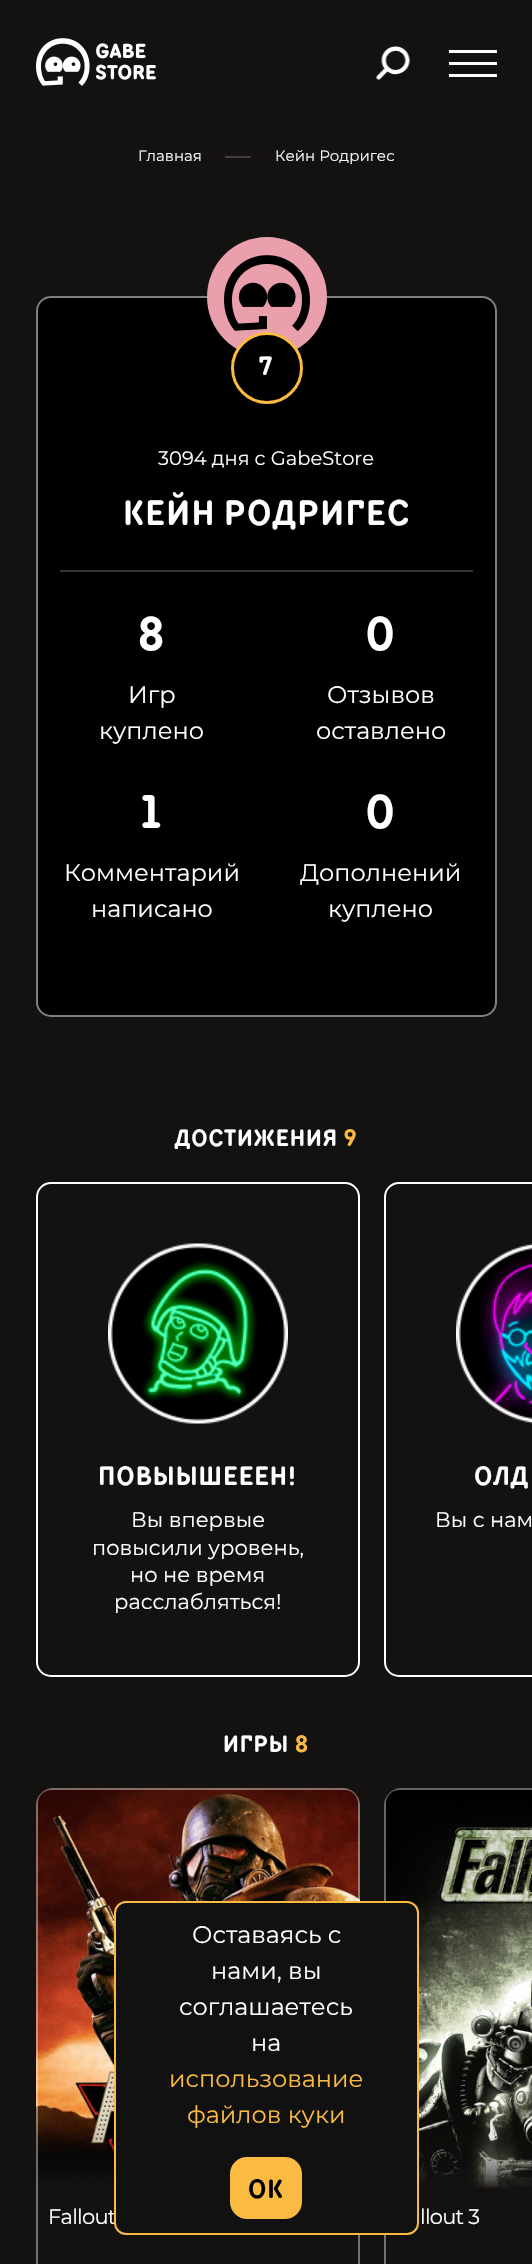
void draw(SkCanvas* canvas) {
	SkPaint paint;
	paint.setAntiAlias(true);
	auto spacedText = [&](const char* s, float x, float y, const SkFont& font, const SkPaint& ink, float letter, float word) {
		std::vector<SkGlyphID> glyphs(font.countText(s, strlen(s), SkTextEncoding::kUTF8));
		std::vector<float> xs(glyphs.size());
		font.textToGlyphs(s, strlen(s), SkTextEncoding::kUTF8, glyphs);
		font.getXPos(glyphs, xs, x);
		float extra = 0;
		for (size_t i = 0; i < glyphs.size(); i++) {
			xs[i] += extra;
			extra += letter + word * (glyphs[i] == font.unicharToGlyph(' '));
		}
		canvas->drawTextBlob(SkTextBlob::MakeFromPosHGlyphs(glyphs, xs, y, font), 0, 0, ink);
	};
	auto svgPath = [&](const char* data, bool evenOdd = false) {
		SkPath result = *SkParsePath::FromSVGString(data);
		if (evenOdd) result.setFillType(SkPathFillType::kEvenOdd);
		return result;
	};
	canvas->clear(0xff141111);
	canvas->drawImageRect(SkImages::DeferredFromEncodedData(SkData::MakeFromFileName("img1.png")), SkRect::MakeXYWH(36, 38, 120, 48), SkSamplingOptions());
	canvas->drawImageRect(SkImages::DeferredFromEncodedData(SkData::MakeFromFileName("img2.png")), SkRect::MakeXYWH(376, 46, 34, 34), SkSamplingOptions());
	paint.setColor(0xffffffff);
	canvas->drawRect(SkRect::MakeXYWH(449, 50, 48, 3), paint);
	canvas->drawRect(SkRect::MakeXYWH(449, 62, 48, 3), paint);
	canvas->drawRect(SkRect::MakeXYWH(449, 74, 48, 3), paint);
	SkFont f1(fontMgr->matchFamilyStyle("Montserrat", SkFontStyle::Normal()), 15);
	f1.setSubpixel(true);
	canvas->drawString("Главная", 138, 161, f1, paint);
	paint.setColor(0xff434141);
	canvas->drawRect(SkRect::MakeXYWH(225, 156, 26, 2), paint);
	paint.setColor(0xffffffff);
	canvas->drawString("Кейн Родригес", 275, 161, f1, paint);
	{
		const SkColor colors[] = {0x00130f0f, 0x08130f0f, 0x12131010, 0x3d141111, 0x59141111, 0x78141111};
		const float stops[] = {0, 0.09, 0.21, 0.46, 0.75, 1};
		const SkPoint ends[] = {{266, 174}, {266, 0}};
		paint.setShader(SkGradientShader::MakeLinear(ends, colors, stops, 6, SkTileMode::kClamp));
		paint.setAlpha(255);
	}
	canvas->drawRect(SkRect::MakeXYWH(139, 150, 255, 13), paint);
	paint.setShader(nullptr);
	paint.setColor(0xff000000);
	canvas->drawRoundRect(SkRect::MakeXYWH(36, 296, 461, 721), 15, 15, paint);
	paint.setStroke(true);
	paint.setStrokeWidth(2);
	paint.setColor(0x80ffffff);
	canvas->drawRoundRect(SkRect::MakeXYWH(37, 297, 459, 719), 14, 14, paint);
	paint.setStroke(false);
	paint.setColor(0xffea9fad);
	canvas->drawCircle(267, 297, 60, paint);
	canvas->drawImageRect(SkImages::DeferredFromEncodedData(SkData::MakeFromFileName("img3.png")), SkRect::MakeXYWH(224, 255, 86, 77), SkSamplingOptions());
	paint.setColor(0xff000000);
	canvas->drawCircle(267, 368, 34.5, paint);
	paint.setStroke(true);
	paint.setStrokeWidth(3);
	paint.setColor(0xfffbbb43);
	canvas->drawCircle(267, 368, 34.5, paint);
	SkFont f2(fontMgr->matchFamilyStyle("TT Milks", SkFontStyle(600, SkFontStyle::kNormal_Width, SkFontStyle::kUpright_Slant)), 27);
	f2.setSubpixel(true);
	paint.setStroke(false);
	paint.setColor(0xffffffff);
	spacedText("7", 259, 375, f2, paint, 1, 0);
	SkFont f3(fontMgr->matchFamilyStyle("Montserrat", SkFontStyle::Normal()), 19.5);
	f3.setSubpixel(true);
	canvas->drawString("3094 дня с GabeStore", 158, 465, f3, paint);
	paint.setColor(0xff333333);
	canvas->drawRect(SkRect::MakeXYWH(60, 570, 413, 2), paint);
	SkFont f4(fontMgr->matchFamilyStyle("TT Milks", SkFontStyle(600, SkFontStyle::kNormal_Width, SkFontStyle::kUpright_Slant)), 36);
	f4.setSubpixel(true);
	paint.setColor(0xffffffff);
	spacedText("КЕЙН РОДРИГЕС", 123, 525, f4, paint, 1.5, 0);
	SkFont f5(fontMgr->matchFamilyStyle("TT Milks", SkFontStyle(600, SkFontStyle::kNormal_Width, SkFontStyle::kUpright_Slant)), 48);
	f5.setSubpixel(true);
	spacedText("8", 138, 650, f5, paint, 2, 0);
	SkFont f6(fontMgr->matchFamilyStyle("Montserrat", SkFontStyle::Normal()), 24);
	f6.setSubpixel(true);
	canvas->drawString("Игр", 128, 703, f6, paint);
	canvas->drawString("куплено", 99, 739, f6, paint);
	spacedText("0", 365, 650, f5, paint, 2, 0);
	canvas->drawString("Отзывов", 327, 703, f6, paint);
	canvas->drawString("оставлено", 316, 739, f6, paint);
	spacedText("1", 141, 828, f5, paint, 2, 0);
	canvas->drawString("Комментарий", 64, 881, f6, paint);
	canvas->drawString("написано", 91, 917, f6, paint);
	spacedText("0", 365, 828, f5, paint, 2, 0);
	canvas->drawString("Дополнений", 300, 881, f6, paint);
	canvas->drawString("куплено", 328, 917, f6, paint);
	SkFont f7(fontMgr->matchFamilyStyle("TT Milks", SkFontStyle(600, SkFontStyle::kNormal_Width, SkFontStyle::kUpright_Slant)), 24);
	f7.setSubpixel(true);
	spacedText("ДОСТИЖЕНИЯ", 175, 1146, f7, paint, 1, 0);
	paint.setColor(0xfffbbb43);
	spacedText("9", 344, 1146, f7, paint, 1, 0);
	paint.setStroke(true);
	paint.setStrokeWidth(2);
	paint.setColor(0xffffffff);
	canvas->drawRoundRect(SkRect::MakeXYWH(37, 1183, 322, 493), 14, 14, paint);
	canvas->drawImageRect(SkImages::DeferredFromEncodedData(SkData::MakeFromFileName("img4.png")), SkRect::MakeXYWH(108, 1243, 180, 181), SkSamplingOptions());
	paint.setStroke(false);
	spacedText("ПОВЫЫШЕЕЕН!", 98, 1485, f2, paint, 1, 0);
	SkFont f8(fontMgr->matchFamilyStyle("Montserrat", SkFontStyle::Normal()), 21);
	f8.setSubpixel(true);
	canvas->drawString("Вы впервые", 131, 1527, f8, paint);
	canvas->drawString("повысили уровень,", 92, 1555, f8, paint);
	canvas->drawString("но не время", 130, 1582, f8, paint);
	canvas->drawString("расслабляться!", 114, 1609, f8, paint);
	paint.setStroke(true);
	canvas->drawRoundRect(SkRect::MakeXYWH(385, 1183, 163, 493), 14, 14, paint);
	canvas->drawImageRect(SkImages::DeferredFromEncodedData(SkData::MakeFromFileName("img5.png")), SkRect::MakeXYWH(456, 1243, 76, 181), SkSamplingOptions());
	paint.setStroke(false);
	spacedText("ОЛД", 474, 1485, f2, paint, 1, 0);
	canvas->drawString("Вы с нам", 435, 1527, f8, paint);
	spacedText("ИГРЫ", 223, 1752, f7, paint, 1, 0);
	paint.setColor(0xfffbbb43);
	spacedText("8", 295, 1752, f7, paint, 1, 0);
	canvas->drawImageRect(SkImages::DeferredFromEncodedData(SkData::MakeFromFileName("img6.png")), SkRect::MakeXYWH(36, 1788, 324, 400), SkSamplingOptions());
	canvas->drawImageRect(SkImages::DeferredFromEncodedData(SkData::MakeFromFileName("img7.png")), SkRect::MakeXYWH(36, 1788, 324, 400), SkSamplingOptions());
	paint.setColor(0xffffffff);
	spacedText("Fallout", 48, 2224, f8, paint, -0.75, 0);
	paint.setColor(0x66ffffff);
	canvas->drawPath(svgPath("M53 1788C44 1788 36 1796 36 1805V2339C36 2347 43 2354 51 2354H345C353 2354 360 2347 360 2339V1805C360 1796 352 1788 343 1788ZM51 1790C44 1790 38 1796 38 1803V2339C38 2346 44 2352 51 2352H345C352 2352 358 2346 358 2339V1803C358 1796 352 1790 345 1790Z", true), paint);
	canvas->drawImageRect(SkImages::DeferredFromEncodedData(SkData::MakeFromFileName("img8.png")), SkRect::MakeXYWH(384, 1788, 148, 400), SkSamplingOptions());
	canvas->drawImageRect(SkImages::DeferredFromEncodedData(SkData::MakeFromFileName("img9.png")), SkRect::MakeXYWH(384, 1788, 148, 400), SkSamplingOptions());
	paint.setColor(0xffffffff);
	spacedText("llout 3", 420, 2224, f8, paint, -0.75, 0);
	paint.setColor(0x66ffffff);
	canvas->drawPath(svgPath("M401 1788C392 1788 384 1796 384 1805V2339C384 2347 391 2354 399 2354H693C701 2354 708 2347 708 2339V1805C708 1796 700 1788 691 1788ZM399 1790C392 1790 386 1796 386 1803V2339C386 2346 392 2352 399 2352H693C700 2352 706 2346 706 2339V1803C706 1796 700 1790 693 1790Z", true), paint);
	paint.setColor(0xff121111);
	canvas->drawRoundRect(SkRect::MakeXYWH(115, 1902, 303, 332), 11, 11, paint);
	paint.setStroke(true);
	paint.setColor(0xfffbbb43);
	canvas->drawRoundRect(SkRect::MakeXYWH(115, 1902, 303, 332), 11, 11, paint);
	paint.setStroke(false);
	paint.setColor(0xffffffff);
	canvas->drawString("Оставаясь с", 192, 1943, f6, paint);
	canvas->drawString("нами, вы", 211, 1979, f6, paint);
	canvas->drawString("соглашаетесь", 179, 2015, f6, paint);
	canvas->drawString("на", 251, 2051, f6, paint);
	paint.setColor(0xfffbbb43);
	canvas->drawString("использование", 169, 2087, f6, paint);
	canvas->drawString("файлов куки", 187, 2123, f6, paint);
	canvas->drawRoundRect(SkRect::MakeXYWH(230, 2157, 72, 62), 17, 17, paint);
	paint.setColor(0xff000000);
	spacedText("OK", 248, 2198, f2, paint, 1, 0);
}
